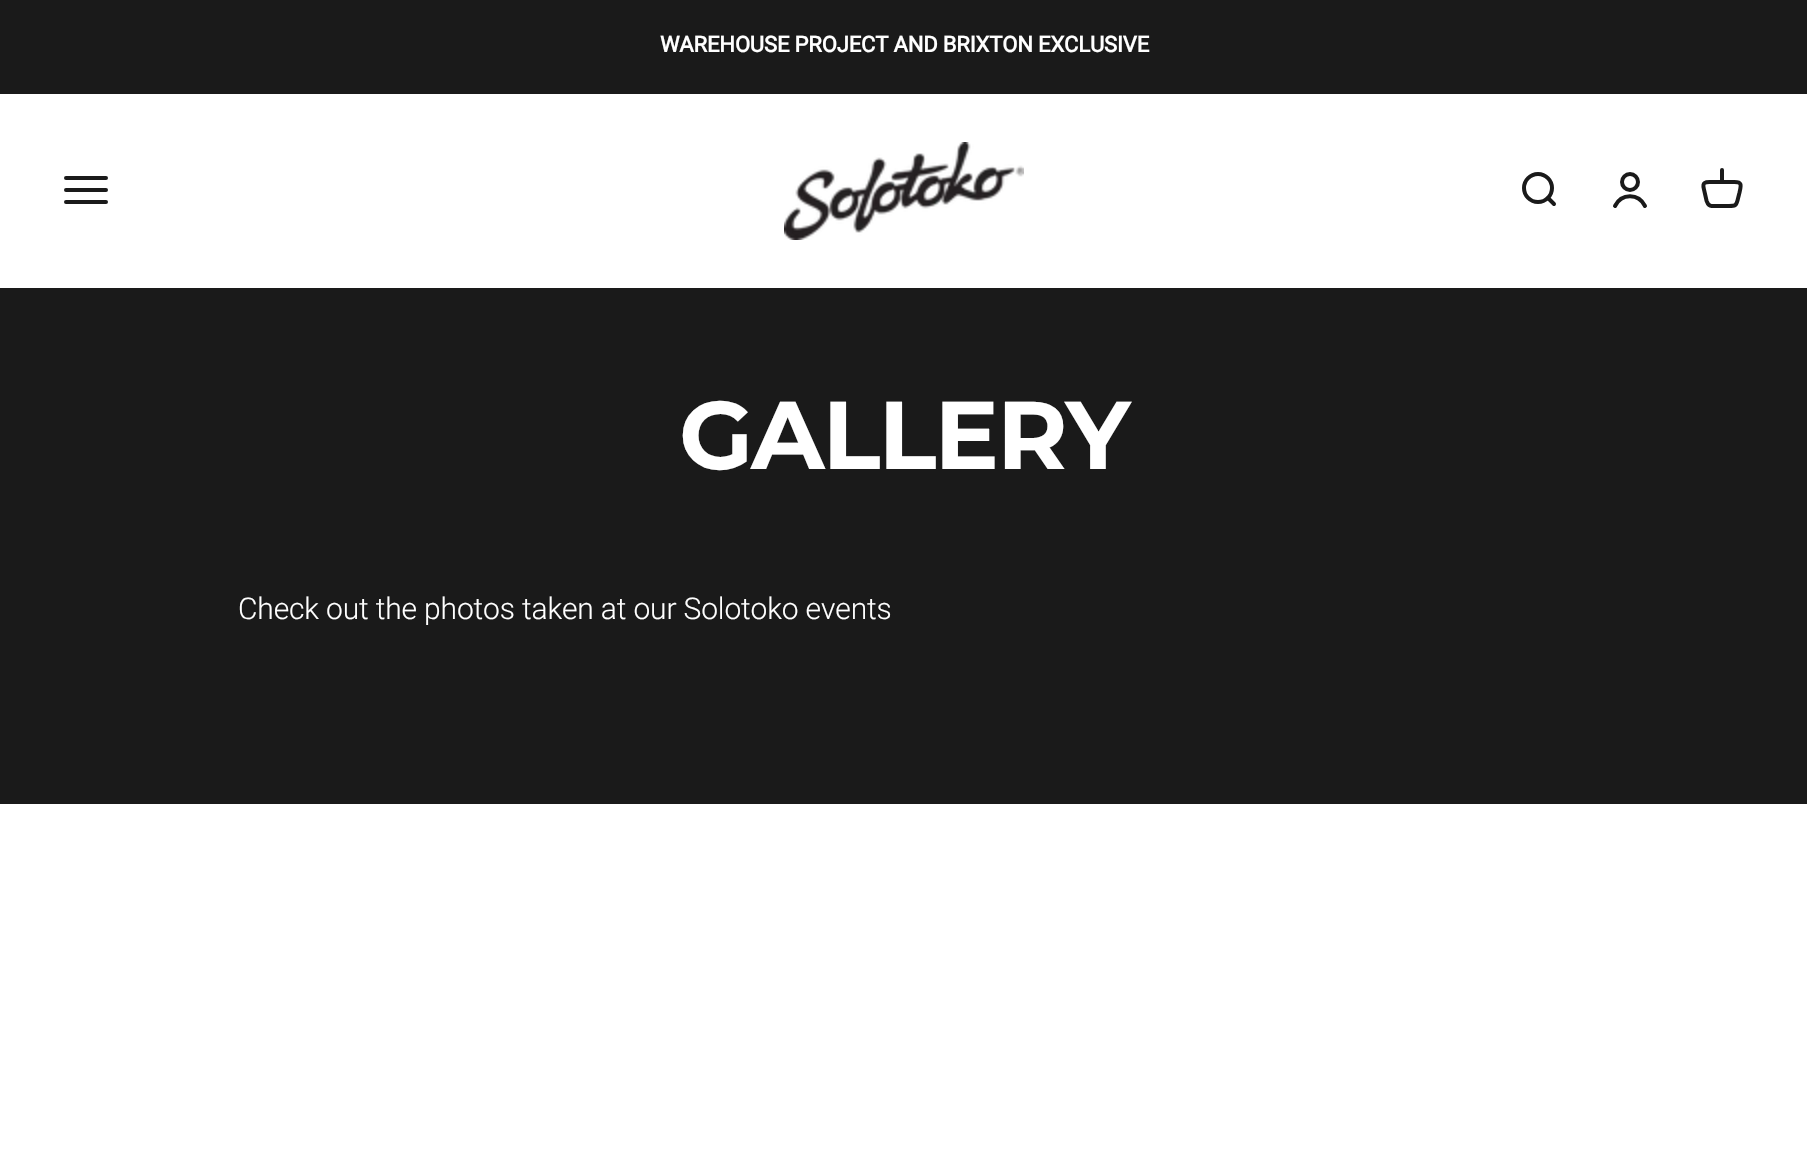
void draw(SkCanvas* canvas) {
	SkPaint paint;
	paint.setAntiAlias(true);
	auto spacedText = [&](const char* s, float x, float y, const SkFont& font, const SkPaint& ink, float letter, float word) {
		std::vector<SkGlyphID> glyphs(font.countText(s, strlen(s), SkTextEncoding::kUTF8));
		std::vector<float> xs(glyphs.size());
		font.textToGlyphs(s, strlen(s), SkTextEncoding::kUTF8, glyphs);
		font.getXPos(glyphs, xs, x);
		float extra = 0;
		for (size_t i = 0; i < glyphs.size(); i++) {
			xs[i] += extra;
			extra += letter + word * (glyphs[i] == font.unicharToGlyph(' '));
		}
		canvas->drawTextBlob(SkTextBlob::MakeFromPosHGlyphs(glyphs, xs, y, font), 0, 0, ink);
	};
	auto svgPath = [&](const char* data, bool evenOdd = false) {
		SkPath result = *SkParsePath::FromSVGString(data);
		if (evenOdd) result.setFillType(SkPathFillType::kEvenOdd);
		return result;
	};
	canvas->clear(0xff1a1a1a);
	SkFont f1(fontMgr->matchFamilyStyle("Roboto", SkFontStyle::Bold()), 22);
	f1.setSubpixel(true);
	paint.setColor(0xffffffff);
	spacedText("WAREHOUSE PROJECT AND BRIXTON EXCLUSIVE", 660, 52, f1, paint, -0.15, 0);
	canvas->drawRect(SkRect::MakeXYWH(0, 94, 1807, 194), paint);
	paint.setStroke(true);
	paint.setStrokeWidth(4);
	paint.setStrokeCap(SkPaint::kRound_Cap);
	paint.setColor(0xff1a1a1a);
	canvas->drawPath(svgPath("M66 178H106M66 190H106M66 202H106"), paint);
	canvas->drawImageRect(SkImages::DeferredFromEncodedData(SkData::MakeFromFileName("img1.png")), SkRect::MakeXYWH(784, 142, 240, 98), SkSamplingOptions());
	paint.setStrokeCap(SkPaint::kButt_Cap);
	canvas->drawCircle(1538, 188, 14, paint);
	paint.setStrokeCap(SkPaint::kRound_Cap);
	paint.setStrokeJoin(SkPaint::kRound_Join);
	canvas->drawPath(svgPath("M1548 198L1554 204"), paint);
	paint.setStrokeCap(SkPaint::kButt_Cap);
	paint.setStrokeJoin(SkPaint::kMiter_Join);
	canvas->drawCircle(1630, 182, 8, paint);
	paint.setStrokeCap(SkPaint::kRound_Cap);
	canvas->drawPath(svgPath("M1615 206C1621.5 193 1638.5 193 1645 206"), paint);
	paint.setStrokeJoin(SkPaint::kRound_Join);
	canvas->drawPath(svgPath("M1722 182H1712C1710 182 1706.5 181.5 1704.5 183C1702.5 184.5 1703.5 187.5 1704 189.5L1706.5 200.5C1707.5 203 1708 206 1711.5 206H1729C1735 206 1736 206 1737.5 200.5L1739.5 192.5C1741 185.5 1742.5 182 1734.5 182ZM1722 182V170"), paint);
	SkFont f2(fontMgr->matchFamilyStyle("Montserrat", SkFontStyle::Bold()), 96);
	f2.setSubpixel(true);
	paint.setStroke(false);
	paint.setColor(0xffffffff);
	spacedText("GALLERY", 679, 469, f2, paint, -2, 0);
	SkFont f3(fontMgr->matchFamilyStyle("Roboto", SkFontStyle(300, SkFontStyle::kNormal_Width, SkFontStyle::kUpright_Slant)), 30);
	f3.setSubpixel(true);
	spacedText("Check out the photos taken at our Solotoko events", 238, 619, f3, paint, -0.15, 0);
	canvas->drawRect(SkRect::MakeXYWH(0, 804, 1807, 356), paint);
}
